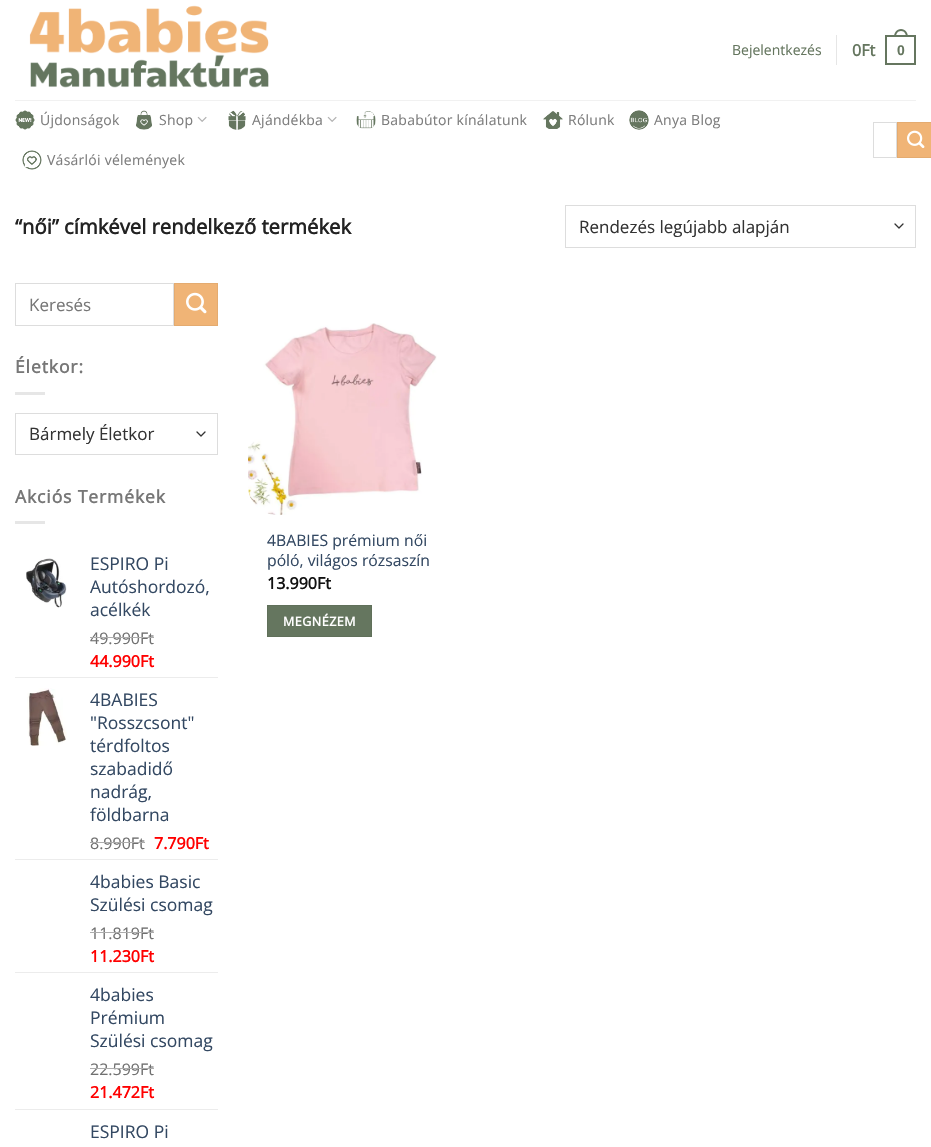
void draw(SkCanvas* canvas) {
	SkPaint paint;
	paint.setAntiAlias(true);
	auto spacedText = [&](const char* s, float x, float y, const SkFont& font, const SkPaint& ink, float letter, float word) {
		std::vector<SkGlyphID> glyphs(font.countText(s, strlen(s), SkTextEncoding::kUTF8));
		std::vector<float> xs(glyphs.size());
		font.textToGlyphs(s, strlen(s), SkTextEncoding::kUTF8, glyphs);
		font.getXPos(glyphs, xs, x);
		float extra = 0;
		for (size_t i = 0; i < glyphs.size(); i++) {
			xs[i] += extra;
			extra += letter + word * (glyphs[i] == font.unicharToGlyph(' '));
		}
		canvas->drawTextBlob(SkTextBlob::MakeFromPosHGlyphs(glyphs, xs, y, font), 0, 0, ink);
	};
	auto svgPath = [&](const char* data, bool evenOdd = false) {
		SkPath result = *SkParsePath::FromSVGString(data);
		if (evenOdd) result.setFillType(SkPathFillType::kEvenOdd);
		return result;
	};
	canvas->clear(0xffffffff);
	canvas->drawImageRect(SkImages::DeferredFromEncodedData(SkData::MakeFromFileName("img1.png")), SkRect::MakeXYWH(29, 5, 240, 83), SkSamplingOptions());
	SkFont f1(fontMgr->matchFamilyStyle("Open Sans", SkFontStyle::Normal()), 14);
	f1.setSubpixel(true);
	paint.setColor(0xff65765f);
	canvas->drawString("Bejelentkezés", 732, 55, f1, paint);
	paint.setColor(0xffe6e6e6);
	canvas->drawRect(SkRect::MakeXYWH(836, 35, 1, 30), paint);
	SkFont f2(fontMgr->matchFamilyStyle("Open Sans", SkFontStyle::Bold()), 16);
	f2.setSubpixel(true);
	paint.setColor(0xff65765f);
	canvas->drawString("0Ft", 852, 56, f2, paint);
	paint.setStroke(true);
	paint.setStrokeWidth(2);
	canvas->drawRect(SkRect::MakeXYWH(886, 36, 29, 28), paint);
	paint.setStroke(false);
	canvas->drawPath(svgPath("M901 29C905.5 29 908 33 908 37H894C894 33 896.5 29 901 29ZM901 31C904.5 31 906 34 906 37H896C896 34 897.5 31 901 31Z", true), paint);
	SkFont f3(fontMgr->matchFamilyStyle("Liberation Sans", SkFontStyle::Bold()), 14);
	f3.setSubpixel(true);
	canvas->drawString("0", 897, 55, f3, paint);
	paint.setColor(0xfff1f1f1);
	canvas->drawRect(SkRect::MakeXYWH(15, 100, 901, 1), paint);
	canvas->drawImageRect(SkImages::DeferredFromEncodedData(SkData::MakeFromFileName("img2.png")), SkRect::MakeXYWH(15, 110, 20, 20), SkSamplingOptions());
	paint.setColor(0xff7d7d7d);
	spacedText("Újdonságok", 40, 125, f1, paint, 0.25, 0);
	canvas->drawImageRect(SkImages::DeferredFromEncodedData(SkData::MakeFromFileName("img3.png")), SkRect::MakeXYWH(136, 110, 16, 20), SkSamplingOptions());
	spacedText("Shop", 159, 125, f1, paint, 0.25, 0);
	canvas->drawImageRect(SkImages::DeferredFromEncodedData(SkData::MakeFromFileName("img4.png")), SkRect::MakeXYWH(197, 116, 10, 6), SkSamplingOptions());
	canvas->drawImageRect(SkImages::DeferredFromEncodedData(SkData::MakeFromFileName("img5.png")), SkRect::MakeXYWH(228, 110, 18, 20), SkSamplingOptions());
	spacedText("Ajándékba", 252, 125, f1, paint, 0.25, 0);
	canvas->drawImageRect(SkImages::DeferredFromEncodedData(SkData::MakeFromFileName("img4.png")), SkRect::MakeXYWH(327, 116, 10, 6), SkSamplingOptions());
	canvas->drawImageRect(SkImages::DeferredFromEncodedData(SkData::MakeFromFileName("img6.png")), SkRect::MakeXYWH(356, 111, 20, 18), SkSamplingOptions());
	spacedText("Bababútor kínálatunk", 381, 125, f1, paint, 0.25, 0);
	canvas->drawImageRect(SkImages::DeferredFromEncodedData(SkData::MakeFromFileName("img7.png")), SkRect::MakeXYWH(543, 111, 20, 18), SkSamplingOptions());
	spacedText("Rólunk", 568, 125, f1, paint, 0.25, 0);
	canvas->drawImageRect(SkImages::DeferredFromEncodedData(SkData::MakeFromFileName("img8.png")), SkRect::MakeXYWH(629, 110, 20, 20), SkSamplingOptions());
	spacedText("Anya Blog", 654, 125, f1, paint, 0.25, 0);
	canvas->drawImageRect(SkImages::DeferredFromEncodedData(SkData::MakeFromFileName("img9.png")), SkRect::MakeXYWH(22, 150, 20, 20), SkSamplingOptions());
	spacedText("Vásárlói vélemények", 47, 165, f1, paint, 0.25, 0);
	paint.setStroke(true);
	paint.setStrokeWidth(1);
	paint.setColor(0xffdddddd);
	canvas->drawRect(SkRect::MakeXYWH(873.5, 122.5, 23, 35), paint);
	paint.setStroke(false);
	paint.setColor(0xfff0b476);
	canvas->drawRect(SkRect::MakeXYWH(897.5, 122.5, 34, 35), paint);
	paint.setStroke(true);
	paint.setColor(0xffe4ab70);
	canvas->drawRect(SkRect::MakeXYWH(897.5, 122.5, 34, 35), paint);
	canvas->drawImageRect(SkImages::DeferredFromEncodedData(SkData::MakeFromFileName("img10.png")), SkRect::MakeXYWH(907, 130, 18, 18), SkSamplingOptions());
	SkFont f4(fontMgr->matchFamilyStyle("Open Sans", SkFontStyle::Bold()), 20.25);
	f4.setSubpixel(true);
	paint.setStroke(false);
	paint.setColor(0xff222222);
	canvas->drawString("“női” címkével rendelkező termékek", 15, 234, f4, paint);
	paint.setStroke(true);
	paint.setStrokeWidth(1.3);
	paint.setStrokeCap(SkPaint::kRound_Cap);
	paint.setStrokeJoin(SkPaint::kRound_Join);
	paint.setColor(0xff333333);
	canvas->drawPath(svgPath("M895 224L899 228L903 224"), paint);
	paint.setStrokeWidth(1);
	paint.setStrokeCap(SkPaint::kButt_Cap);
	paint.setStrokeJoin(SkPaint::kMiter_Join);
	paint.setColor(0xffdddddd);
	canvas->drawRect(SkRect::MakeXYWH(565.5, 205.5, 350, 42), paint);
	SkFont f5(fontMgr->matchFamilyStyle("Open Sans", SkFontStyle::Normal()), 17);
	f5.setSubpixel(true);
	paint.setStroke(false);
	paint.setColor(0xff333333);
	canvas->drawString("Rendezés legújabb alapján", 579, 233, f5, paint);
	paint.setStroke(true);
	paint.setColor(0xffdddddd);
	canvas->drawRect(SkRect::MakeXYWH(15.5, 283.5, 158, 42), paint);
	paint.setStroke(false);
	paint.setColor(0xff777777);
	canvas->drawString("Keresés", 29, 311, f5, paint);
	paint.setColor(0xfff0b476);
	canvas->drawRect(SkRect::MakeXYWH(174.5, 283.5, 43, 42), paint);
	paint.setStroke(true);
	paint.setColor(0xffe4ab70);
	canvas->drawRect(SkRect::MakeXYWH(174.5, 283.5, 43, 42), paint);
	canvas->drawImageRect(SkImages::DeferredFromEncodedData(SkData::MakeFromFileName("img11.png")), SkRect::MakeXYWH(186, 292, 21, 22), SkSamplingOptions());
	SkFont f6(fontMgr->matchFamilyStyle("Open Sans", SkFontStyle::Bold()), 17.5);
	f6.setSubpixel(true);
	paint.setStroke(false);
	paint.setColor(0xff777777);
	spacedText("Életkor:", 15, 373, f6, paint, 0.9, 0);
	paint.setColor(0xffe6e6e6);
	canvas->drawRect(SkRect::MakeXYWH(15, 392, 30, 3), paint);
	paint.setStroke(true);
	paint.setStrokeWidth(1.3);
	paint.setStrokeCap(SkPaint::kRound_Cap);
	paint.setStrokeJoin(SkPaint::kRound_Join);
	paint.setColor(0xff333333);
	canvas->drawPath(svgPath("M197 432L201 436L205 432"), paint);
	paint.setStrokeWidth(1);
	paint.setStrokeCap(SkPaint::kButt_Cap);
	paint.setStrokeJoin(SkPaint::kMiter_Join);
	paint.setColor(0xffdddddd);
	canvas->drawRect(SkRect::MakeXYWH(15.5, 413.5, 202, 41), paint);
	paint.setStroke(false);
	paint.setColor(0xff333333);
	canvas->drawString("Bármely Életkor", 29, 440, f5, paint);
	paint.setColor(0xff777777);
	spacedText("Akciós Termékek", 15, 503, f6, paint, 0.9, 0);
	paint.setColor(0xffe6e6e6);
	canvas->drawRect(SkRect::MakeXYWH(15, 521, 30, 3), paint);
	canvas->drawImageRect(SkImages::DeferredFromEncodedData(SkData::MakeFromFileName("img12.png")), SkRect::MakeXYWH(26, 558, 41, 50), SkSamplingOptions());
	SkFont f7(fontMgr->matchFamilyStyle("Open Sans", SkFontStyle::Normal()), 17.5);
	f7.setSubpixel(true);
	paint.setColor(0xff334862);
	canvas->drawString("ESPIRO Pi", 90, 570, f7, paint);
	canvas->drawString("Autóshordozó,", 90, 593, f7, paint);
	canvas->drawString("acélkék", 90, 616, f7, paint);
	SkFont f8(fontMgr->matchFamilyStyle("Open Sans", SkFontStyle::Normal()), 16);
	f8.setSubpixel(true);
	paint.setColor(0xff707070);
	canvas->drawString("49.990Ft", 90, 644, f8, paint);
	paint.setColor(0xffadadad);
	canvas->drawRect(SkRect::MakeXYWH(90, 637, 64, 1), paint);
	paint.setColor(0xffff0000);
	canvas->drawString("44.990Ft", 90, 667, f2, paint);
	paint.setColor(0xffececec);
	canvas->drawRect(SkRect::MakeXYWH(15, 677, 203, 1), paint);
	canvas->drawImageRect(SkImages::DeferredFromEncodedData(SkData::MakeFromFileName("img13.png")), SkRect::MakeXYWH(27, 688, 40, 58), SkSamplingOptions());
	paint.setColor(0xff334862);
	canvas->drawString("4BABIES", 90, 706, f7, paint);
	canvas->drawString("\"Rosszcsont\"", 90, 729, f7, paint);
	canvas->drawString("térdfoltos", 90, 752, f7, paint);
	canvas->drawString("szabadidő", 90, 775, f7, paint);
	canvas->drawString("nadrág,", 90, 798, f7, paint);
	canvas->drawString("földbarna", 90, 821, f7, paint);
	paint.setColor(0xff707070);
	canvas->drawString("8.990Ft", 90, 849, f8, paint);
	paint.setColor(0xffadadad);
	canvas->drawRect(SkRect::MakeXYWH(90, 842, 55, 1), paint);
	paint.setColor(0xffff0000);
	canvas->drawString("7.790Ft", 154, 849, f2, paint);
	paint.setColor(0xffececec);
	canvas->drawRect(SkRect::MakeXYWH(15, 859, 203, 1), paint);
	paint.setColor(0xff334862);
	canvas->drawString("4babies Basic", 90, 888, f7, paint);
	canvas->drawString("Szülési csomag", 90, 911, f7, paint);
	paint.setColor(0xff707070);
	canvas->drawString("11.819Ft", 90, 939, f8, paint);
	paint.setColor(0xffadadad);
	canvas->drawRect(SkRect::MakeXYWH(90, 932, 64, 1), paint);
	paint.setColor(0xffff0000);
	canvas->drawString("11.230Ft", 90, 962, f2, paint);
	paint.setColor(0xffececec);
	canvas->drawRect(SkRect::MakeXYWH(15, 972, 203, 1), paint);
	paint.setColor(0xff334862);
	canvas->drawString("4babies", 90, 1001, f7, paint);
	canvas->drawString("Prémium", 90, 1024, f7, paint);
	canvas->drawString("Szülési csomag", 90, 1047, f7, paint);
	paint.setColor(0xff707070);
	canvas->drawString("22.599Ft", 90, 1075, f8, paint);
	paint.setColor(0xffadadad);
	canvas->drawRect(SkRect::MakeXYWH(90, 1068, 64, 1), paint);
	paint.setColor(0xffff0000);
	canvas->drawString("21.472Ft", 90, 1098, f2, paint);
	paint.setColor(0xffececec);
	canvas->drawRect(SkRect::MakeXYWH(15, 1109, 203, 1), paint);
	paint.setColor(0xff334862);
	canvas->drawString("ESPIRO Pi", 90, 1138, f7, paint);
	canvas->drawImageRect(SkImages::DeferredFromEncodedData(SkData::MakeFromFileName("img14.png")), SkRect::MakeXYWH(248, 323, 189, 192), SkSamplingOptions());
	SkFont f9(fontMgr->matchFamilyStyle("Open Sans", SkFontStyle::Normal()), 15.75);
	f9.setSubpixel(true);
	canvas->drawString("4BABIES prémium női", 267, 546, f9, paint);
	canvas->drawString("póló, világos rózsaszín", 267, 566, f9, paint);
	paint.setColor(0xff111111);
	canvas->drawString("13.990Ft", 267, 589, f2, paint);
	paint.setColor(0xff65765f);
	canvas->drawRect(SkRect::MakeXYWH(267.5, 605.5, 104, 31), paint);
	paint.setStroke(true);
	paint.setColor(0xff60705a);
	canvas->drawRect(SkRect::MakeXYWH(267.5, 605.5, 104, 31), paint);
	SkFont f10(fontMgr->matchFamilyStyle("Open Sans", SkFontStyle::Bold()), 12.5);
	f10.setSubpixel(true);
	paint.setStroke(false);
	paint.setColor(0xffffffff);
	spacedText("MEGNÉZEM", 283, 626, f10, paint, 0.5, 0);
}
